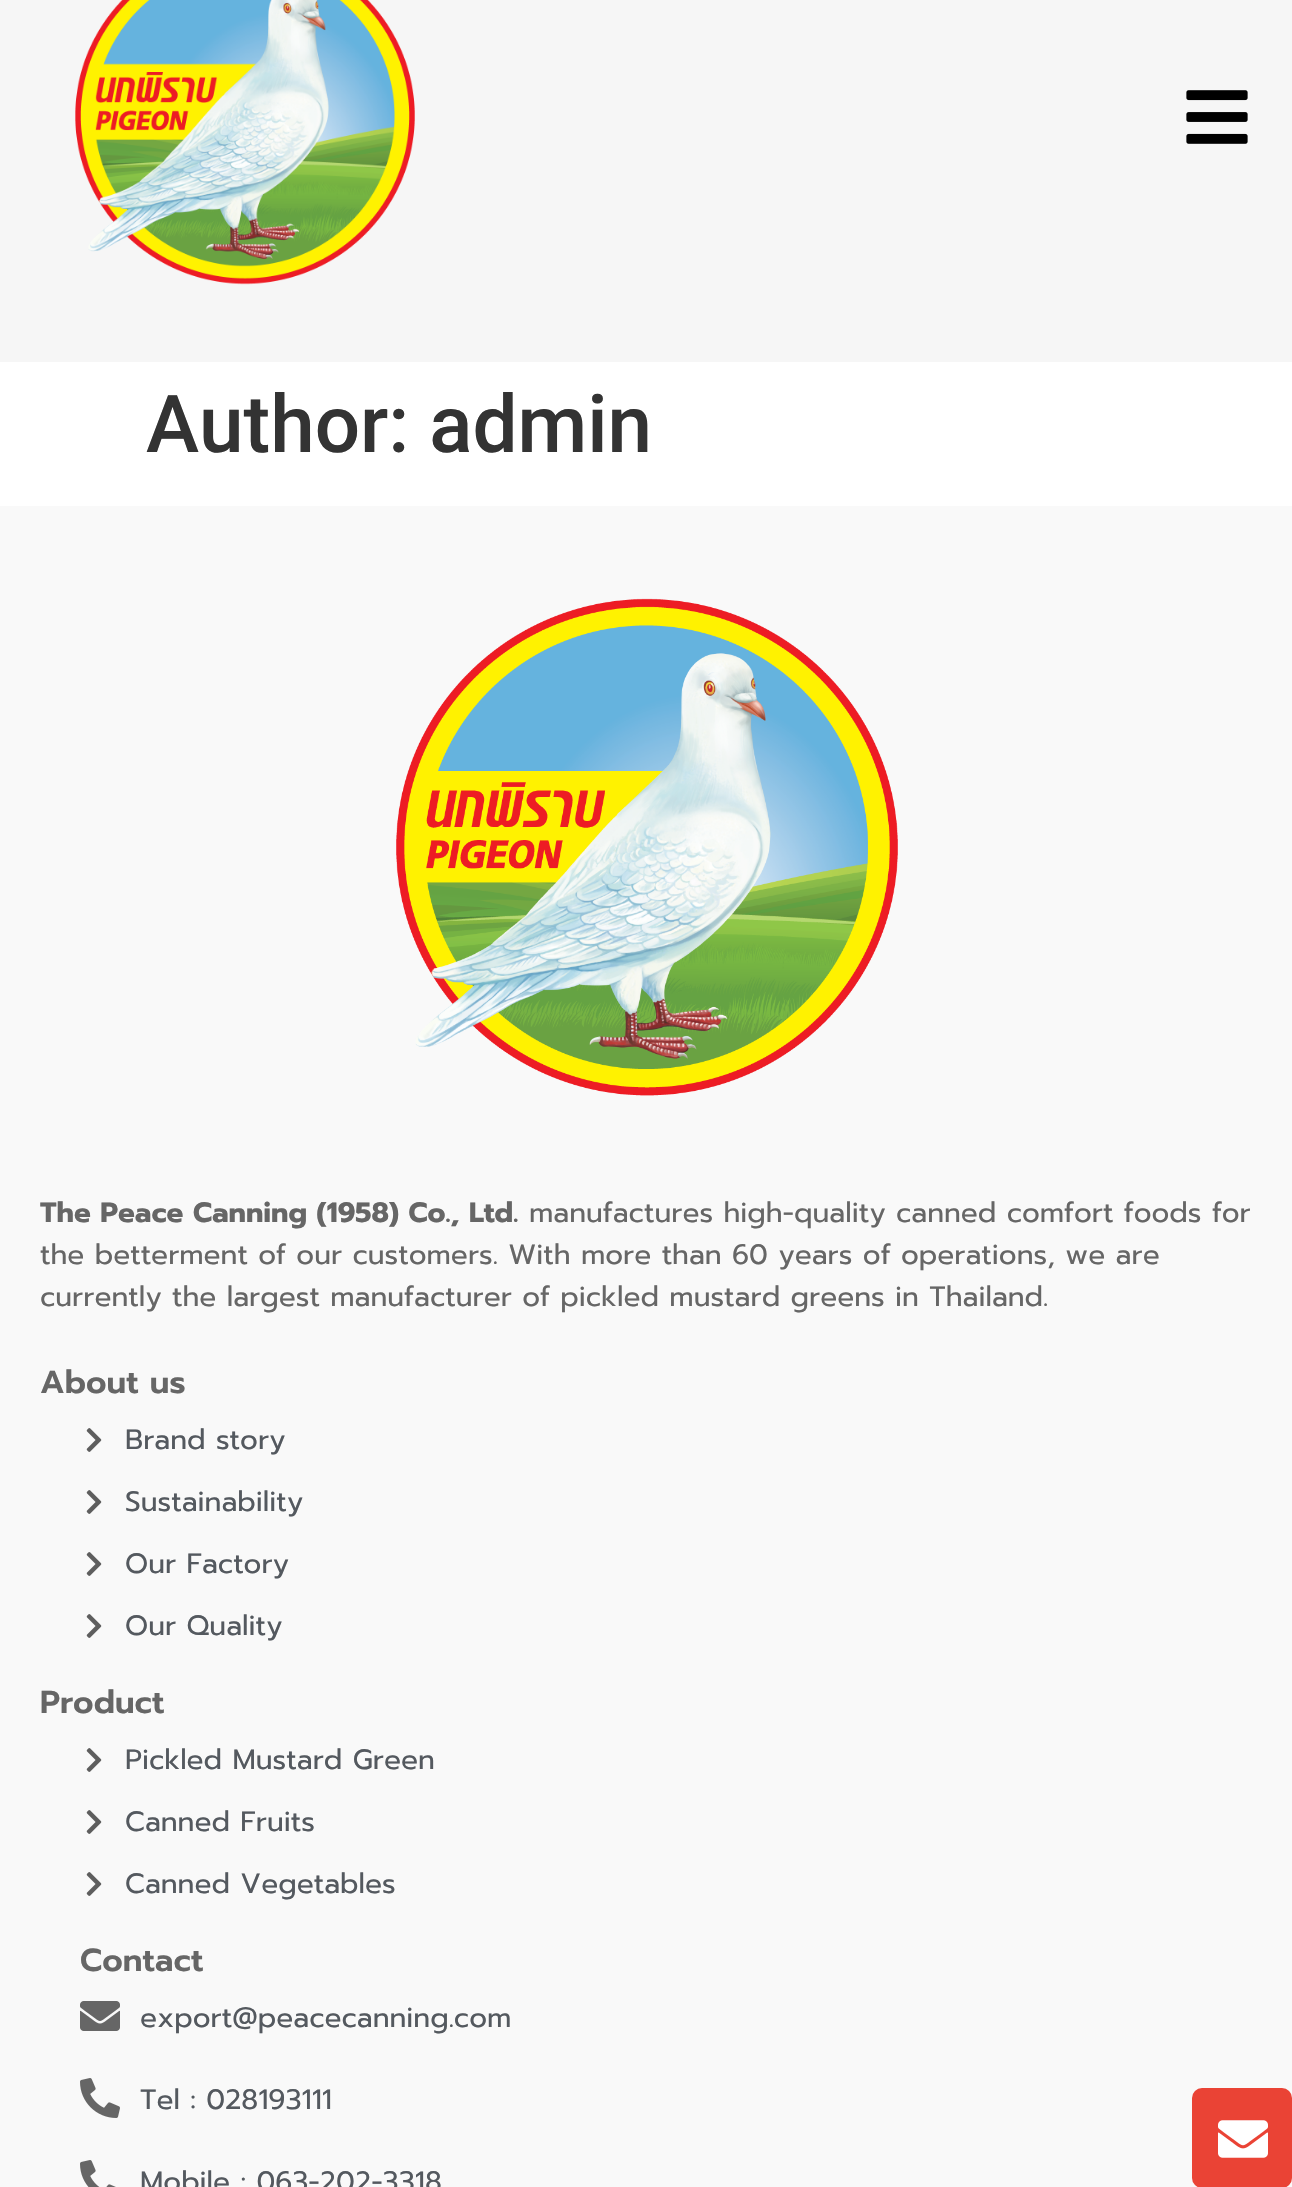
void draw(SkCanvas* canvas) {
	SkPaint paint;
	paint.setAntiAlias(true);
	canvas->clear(0xffffffff);
	paint.setColor(0xfff6f6f6);
	canvas->drawRect(SkRect::MakeXYWH(0, 0, 1292, 362), paint);
	canvas->drawImageRect(SkImages::DeferredFromEncodedData(SkData::MakeFromFileName("img1.png")), SkRect::MakeXYWH(75, 0, 340, 285), SkSamplingOptions());
	canvas->drawImageRect(SkImages::DeferredFromEncodedData(SkData::MakeFromFileName("img2.png")), SkRect::MakeXYWH(1186, 90, 62, 54), SkSamplingOptions());
	SkFont f1(fontMgr->matchFamilyStyle("Roboto", SkFontStyle(500, SkFontStyle::kNormal_Width, SkFontStyle::kUpright_Slant)), 80);
	f1.setSubpixel(true);
	paint.setColor(0xff333333);
	canvas->drawString("Author: admin", 146, 452, f1, paint);
	paint.setColor(0xfff9f9f9);
	canvas->drawRect(SkRect::MakeXYWH(0, 506, 1292, 1681), paint);
	canvas->drawImageRect(SkImages::DeferredFromEncodedData(SkData::MakeFromFileName("img3.png")), SkRect::MakeXYWH(396, 598, 502, 498), SkSamplingOptions());
	SkFont f2(fontMgr->matchFamilyStyle("Prompt", SkFontStyle::Bold()), 28);
	f2.setSubpixel(true);
	paint.setColor(0xff666666);
	canvas->drawString("The Peace Canning (1958) Co., Ltd.", 40, 1222, f2, paint);
	SkFont f3(fontMgr->matchFamilyStyle("Prompt", SkFontStyle::Normal()), 28);
	f3.setSubpixel(true);
	canvas->drawString("manufactures high-quality canned comfort foods for", 529, 1222, f3, paint);
	canvas->drawString("the betterment of our customers. With more than 60 years of operations, we are", 40, 1264, f3, paint);
	canvas->drawString("currently the largest manufacturer of pickled mustard greens in Thailand.", 40, 1306, f3, paint);
	SkFont f4(fontMgr->matchFamilyStyle("Prompt", SkFontStyle(600, SkFontStyle::kNormal_Width, SkFontStyle::kUpright_Slant)), 32);
	f4.setSubpixel(true);
	canvas->drawString("About us", 40, 1393, f4, paint);
	canvas->drawImageRect(SkImages::DeferredFromEncodedData(SkData::MakeFromFileName("img4.png")), SkRect::MakeXYWH(86, 1428, 16, 24), SkSamplingOptions());
	paint.setColor(0xff54595f);
	canvas->drawString("Brand story", 125, 1449, f3, paint);
	canvas->drawImageRect(SkImages::DeferredFromEncodedData(SkData::MakeFromFileName("img4.png")), SkRect::MakeXYWH(86, 1490, 16, 24), SkSamplingOptions());
	canvas->drawString("Sustainability", 125, 1511, f3, paint);
	canvas->drawImageRect(SkImages::DeferredFromEncodedData(SkData::MakeFromFileName("img4.png")), SkRect::MakeXYWH(86, 1552, 16, 24), SkSamplingOptions());
	canvas->drawString("Our Factory", 125, 1573, f3, paint);
	canvas->drawImageRect(SkImages::DeferredFromEncodedData(SkData::MakeFromFileName("img4.png")), SkRect::MakeXYWH(86, 1614, 16, 24), SkSamplingOptions());
	canvas->drawString("Our Quality", 125, 1635, f3, paint);
	paint.setColor(0xff666666);
	canvas->drawString("Product", 40, 1713, f4, paint);
	canvas->drawImageRect(SkImages::DeferredFromEncodedData(SkData::MakeFromFileName("img4.png")), SkRect::MakeXYWH(86, 1748, 16, 24), SkSamplingOptions());
	paint.setColor(0xff54595f);
	canvas->drawString("Pickled Mustard Green", 125, 1769, f3, paint);
	canvas->drawImageRect(SkImages::DeferredFromEncodedData(SkData::MakeFromFileName("img4.png")), SkRect::MakeXYWH(86, 1810, 16, 24), SkSamplingOptions());
	canvas->drawString("Canned Fruits", 125, 1831, f3, paint);
	canvas->drawImageRect(SkImages::DeferredFromEncodedData(SkData::MakeFromFileName("img4.png")), SkRect::MakeXYWH(86, 1872, 16, 24), SkSamplingOptions());
	canvas->drawString("Canned Vegetables", 125, 1893, f3, paint);
	paint.setColor(0xff666666);
	canvas->drawString("Contact", 80, 1971, f4, paint);
	canvas->drawImageRect(SkImages::DeferredFromEncodedData(SkData::MakeFromFileName("img5.png")), SkRect::MakeXYWH(80, 2001, 40, 30), SkSamplingOptions());
	paint.setColor(0xff54595f);
	canvas->drawString("export@peacecanning.com", 140, 2027, f3, paint);
	canvas->drawImageRect(SkImages::DeferredFromEncodedData(SkData::MakeFromFileName("img6.png")), SkRect::MakeXYWH(80, 2078, 40, 40), SkSamplingOptions());
	canvas->drawString("Tel : 028193111", 140, 2109, f3, paint);
	canvas->drawImageRect(SkImages::DeferredFromEncodedData(SkData::MakeFromFileName("img7.png")), SkRect::MakeXYWH(80, 2160, 36, 27), SkSamplingOptions());
	canvas->drawString("Mobile : 063-202-3318", 140, 2191, f3, paint);
	paint.setColor(0xffea4335);
	canvas->drawRoundRect(SkRect::MakeXYWH(1192, 2088, 100, 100), 10, 10, paint);
	canvas->drawImageRect(SkImages::DeferredFromEncodedData(SkData::MakeFromFileName("img8.png")), SkRect::MakeXYWH(1218, 2120, 50, 38), SkSamplingOptions());
}
